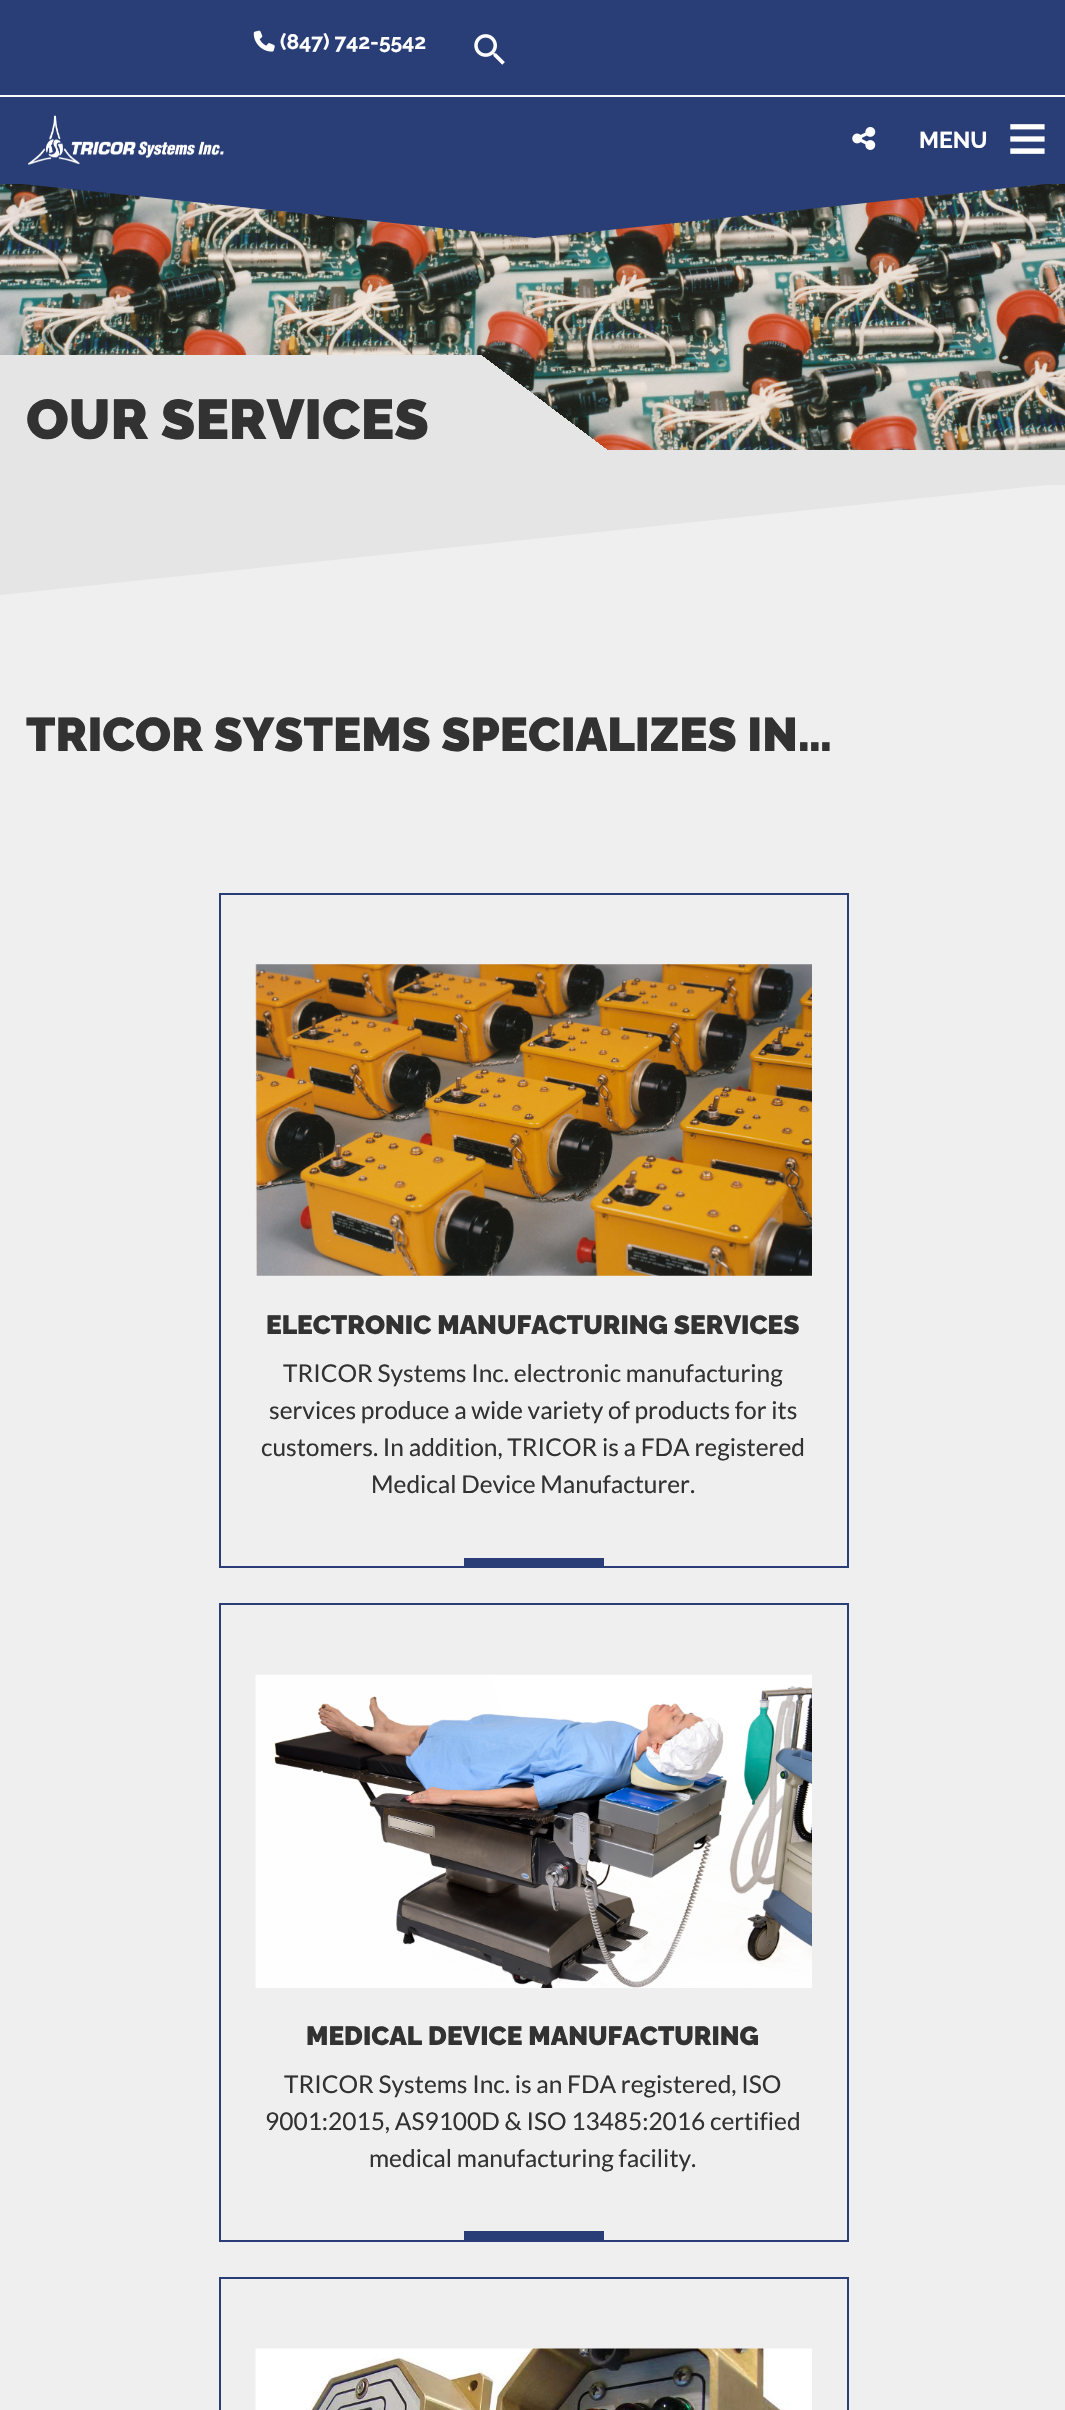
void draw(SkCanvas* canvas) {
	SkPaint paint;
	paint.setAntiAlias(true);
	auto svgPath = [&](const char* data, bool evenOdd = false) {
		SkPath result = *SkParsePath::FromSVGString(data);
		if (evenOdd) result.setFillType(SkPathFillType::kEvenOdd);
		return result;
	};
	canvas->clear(0xffffffff);
	canvas->drawImageRect(SkImages::DeferredFromEncodedData(SkData::MakeFromFileName("img5.png")), SkRect::MakeXYWH(0, 184, 1065, 266), SkSamplingOptions());
	paint.setColor(0x33000000);
	paint.setMaskFilter(SkMaskFilter::MakeBlur(kNormal_SkBlurStyle, 1));
	canvas->drawRect(SkRect::MakeXYWH(0, 0, 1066, 184), paint);
	paint.setMaskFilter(nullptr);
	paint.setColor(0xff293e76);
	canvas->drawRect(SkRect::MakeXYWH(0, 0, 1065, 184), paint);
	paint.setColor(0xffffffff);
	canvas->drawRect(SkRect::MakeXYWH(0, 95, 1065, 2), paint);
	canvas->drawImageRect(SkImages::DeferredFromEncodedData(SkData::MakeFromFileName("img1.png")), SkRect::MakeXYWH(253, 30, 22, 22), SkSamplingOptions());
	SkFont f1(fontMgr->matchFamilyStyle("Raleway", SkFontStyle::Bold()), 21);
	f1.setSubpixel(true);
	canvas->drawString("(847) 742-5542", 280, 49, f1, paint);
	canvas->drawImageRect(SkImages::DeferredFromEncodedData(SkData::MakeFromFileName("img2.png")), SkRect::MakeXYWH(474, 34, 31, 31), SkSamplingOptions());
	canvas->drawImageRect(SkImages::DeferredFromEncodedData(SkData::MakeFromFileName("img3.png")), SkRect::MakeXYWH(28, 115, 196, 50), SkSamplingOptions());
	canvas->drawImageRect(SkImages::DeferredFromEncodedData(SkData::MakeFromFileName("img4.png")), SkRect::MakeXYWH(852, 127, 24, 23), SkSamplingOptions());
	SkFont f2(fontMgr->matchFamilyStyle("Raleway", SkFontStyle::Bold()), 23);
	f2.setSubpixel(true);
	canvas->drawString("MENU", 919, 148, f2, paint);
	SkFont f3(fontMgr->matchFamilyStyle("Liberation Sans", SkFontStyle::Bold()), 70);
	f3.setSubpixel(true);
	canvas->drawString("≡", 1007, 162, f3, paint);
	paint.setColor(0xff293e76);
	canvas->drawPath(svgPath("M4 182H536V238Z"), paint);
	canvas->drawPath(svgPath("M1065 182H533V238Z"), paint);
	paint.setColor(0xffe5e5e5);
	canvas->drawRect(SkRect::MakeXYWH(160, 355, 321, 95), paint);
	SkFont f4(fontMgr->matchFamilyStyle("Raleway", SkFontStyle(900, SkFontStyle::kNormal_Width, SkFontStyle::kUpright_Slant)), 56);
	f4.setSubpixel(true);
	paint.setColor(0xff323232);
	canvas->drawString("OUR SERVICES", 26, 439, f4, paint);
	paint.setColor(0xffe5e5e5);
	canvas->drawRect(SkRect::MakeXYWH(0, 450, 1065, 35), paint);
	paint.setColor(0xffefefef);
	canvas->drawRect(SkRect::MakeXYWH(0, 485, 1065, 1925), paint);
	paint.setColor(0xffe5e5e5);
	canvas->drawPath(svgPath("M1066 483H0V595Z"), paint);
	SkFont f5(fontMgr->matchFamilyStyle("Raleway", SkFontStyle(900, SkFontStyle::kNormal_Width, SkFontStyle::kUpright_Slant)), 47.25);
	f5.setSubpixel(true);
	paint.setColor(0xff323232);
	canvas->drawString("TRICOR SYSTEMS SPECIALIZES IN…", 26, 751, f5, paint);
	paint.setStroke(true);
	paint.setStrokeWidth(2);
	paint.setColor(0xff293e76);
	canvas->drawRect(SkRect::MakeXYWH(220, 894, 628, 673), paint);
	canvas->drawImageRect(SkImages::DeferredFromEncodedData(SkData::MakeFromFileName("img6.png")), SkRect::MakeXYWH(255, 964, 557, 312), SkSamplingOptions());
	SkFont f6(fontMgr->matchFamilyStyle("Raleway", SkFontStyle(900, SkFontStyle::kNormal_Width, SkFontStyle::kUpright_Slant)), 26.25);
	f6.setSubpixel(true);
	paint.setStroke(false);
	paint.setColor(0xff323232);
	canvas->drawString("ELECTRONIC MANUFACTURING SERVICES", 266, 1334, f6, paint);
	SkFont f7(fontMgr->matchFamilyStyle("Lato", SkFontStyle::Normal()), 24.5);
	f7.setSubpixel(true);
	canvas->drawString("TRICOR Systems Inc. electronic manufacturing", 283, 1382, f7, paint);
	canvas->drawString("services produce a wide variety of products for its", 269, 1419, f7, paint);
	canvas->drawString("customers. In addition, TRICOR is a FDA registered", 261, 1456, f7, paint);
	canvas->drawString("Medical Device Manufacturer.", 371, 1493, f7, paint);
	paint.setColor(0xff293e76);
	canvas->drawRect(SkRect::MakeXYWH(464, 1558, 140, 8), paint);
	paint.setStroke(true);
	canvas->drawRect(SkRect::MakeXYWH(220, 1604, 628, 637), paint);
	canvas->drawImageRect(SkImages::DeferredFromEncodedData(SkData::MakeFromFileName("img7.png")), SkRect::MakeXYWH(255, 1674, 557, 314), SkSamplingOptions());
	paint.setStroke(false);
	paint.setColor(0xff323232);
	canvas->drawString("MEDICAL DEVICE MANUFACTURING", 306, 2045, f6, paint);
	canvas->drawString("TRICOR Systems Inc. is an FDA registered, ISO", 284, 2093, f7, paint);
	canvas->drawString("9001:2015, AS9100D & ISO 13485:2016 certified", 265, 2130, f7, paint);
	canvas->drawString("medical manufacturing facility.", 369, 2167, f7, paint);
	paint.setColor(0xff293e76);
	canvas->drawRect(SkRect::MakeXYWH(464, 2231, 140, 9), paint);
	paint.setStroke(true);
	canvas->drawRect(SkRect::MakeXYWH(220, 2278, 628, 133), paint);
	canvas->drawImageRect(SkImages::DeferredFromEncodedData(SkData::MakeFromFileName("img8.png")), SkRect::MakeXYWH(255, 2348, 557, 62), SkSamplingOptions());
}
